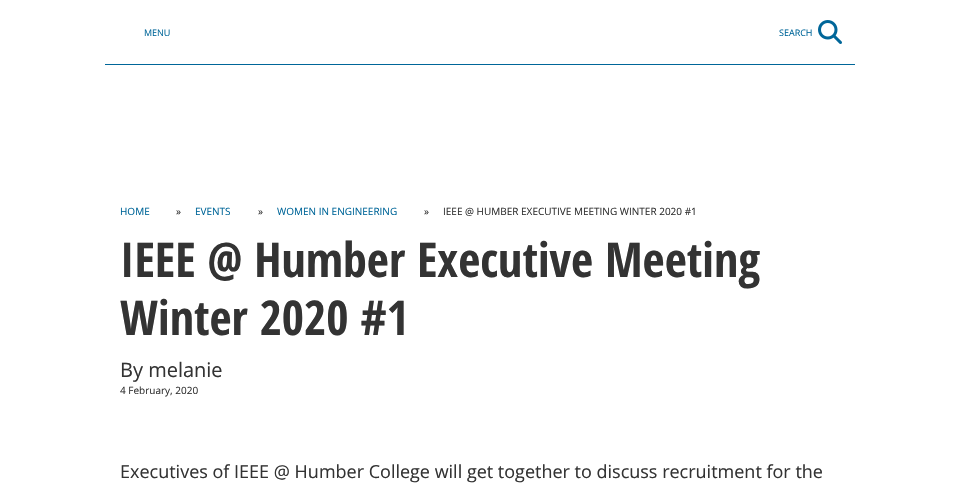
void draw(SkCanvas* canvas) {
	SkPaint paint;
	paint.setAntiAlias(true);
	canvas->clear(0xffffffff);
	paint.setColor(0xff006699);
	canvas->drawRect(SkRect::MakeXYWH(105, 64, 750, 1), paint);
	SkFont f1(fontMgr->matchFamilyStyle("Open Sans", SkFontStyle::Normal()), 9);
	f1.setSubpixel(true);
	canvas->drawString("MENU", 144, 36, f1, paint);
	canvas->drawString("SEARCH", 779, 36, f1, paint);
	canvas->drawImageRect(SkImages::DeferredFromEncodedData(SkData::MakeFromFileName("img1.png")), SkRect::MakeXYWH(818, 20, 24, 24), SkSamplingOptions());
	SkFont f2(fontMgr->matchFamilyStyle("Open Sans", SkFontStyle::Normal()), 10);
	f2.setSubpixel(true);
	canvas->drawString("HOME", 120, 215, f2, paint);
	paint.setColor(0xff333333);
	canvas->drawString("»", 176, 215, f2, paint);
	paint.setColor(0xff006699);
	canvas->drawString("EVENTS", 195, 215, f2, paint);
	paint.setColor(0xff333333);
	canvas->drawString("»", 258, 215, f2, paint);
	paint.setColor(0xff006699);
	canvas->drawString("WOMEN IN ENGINEERING", 277, 215, f2, paint);
	paint.setColor(0xff333333);
	canvas->drawString("»", 424, 215, f2, paint);
	canvas->drawString("IEEE @ HUMBER EXECUTIVE MEETING WINTER 2020 #1", 443, 215, f2, paint);
	SkFont f3(fontMgr->matchFamilyStyle("Open Sans Condensed", SkFontStyle::Bold()), 48);
	f3.setSubpixel(true);
	canvas->drawString("IEEE @ Humber Executive Meeting", 120, 277, f3, paint);
	canvas->drawString("Winter 2020 #1", 120, 335, f3, paint);
	SkFont f4(fontMgr->matchFamilyStyle("Open Sans", SkFontStyle::Normal()), 20);
	f4.setSubpixel(true);
	canvas->drawString("By melanie", 120, 377, f4, paint);
	canvas->drawString("4 February, 2020", 120, 394, f2, paint);
	SkFont f5(fontMgr->matchFamilyStyle("Open Sans", SkFontStyle::Normal()), 18);
	f5.setSubpixel(true);
	canvas->drawString("Executives of IEEE @ Humber College will get together to discuss recruitment for the", 120, 478, f5, paint);
}
